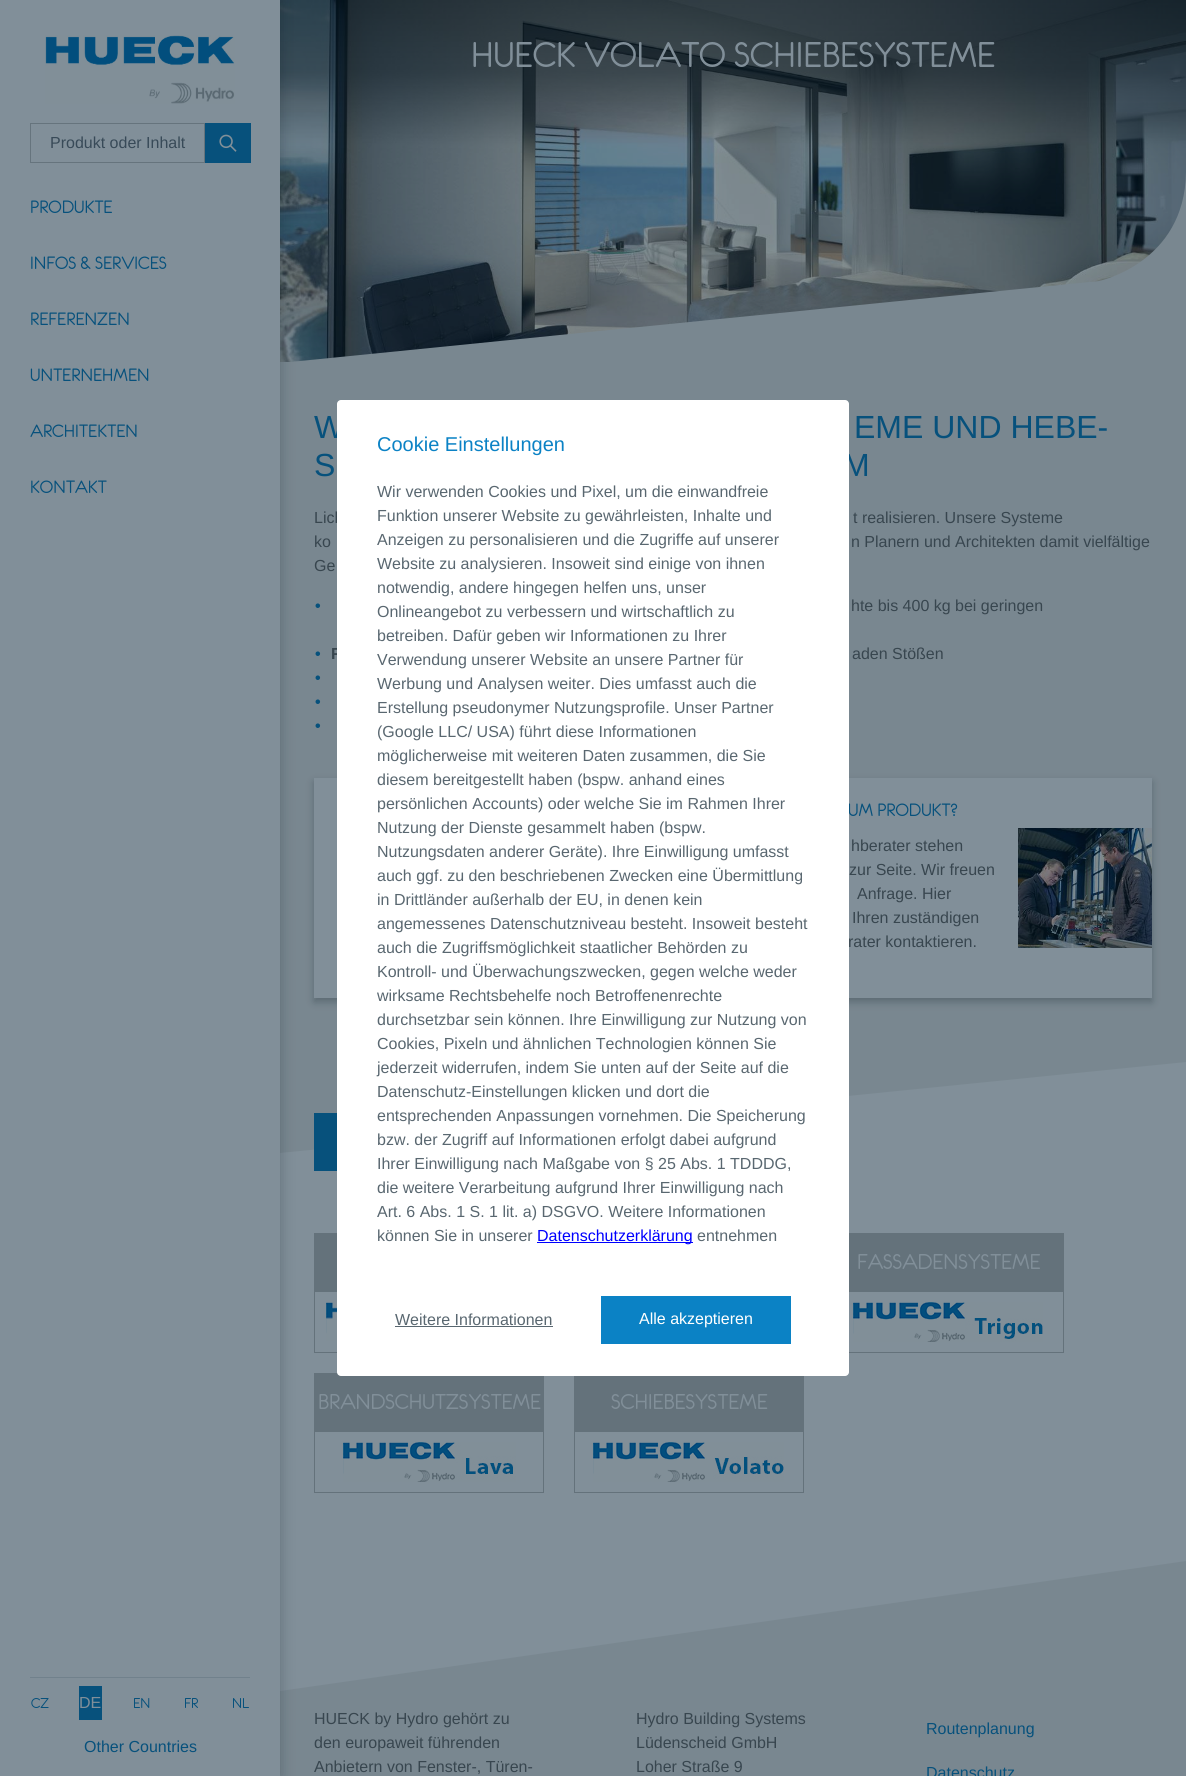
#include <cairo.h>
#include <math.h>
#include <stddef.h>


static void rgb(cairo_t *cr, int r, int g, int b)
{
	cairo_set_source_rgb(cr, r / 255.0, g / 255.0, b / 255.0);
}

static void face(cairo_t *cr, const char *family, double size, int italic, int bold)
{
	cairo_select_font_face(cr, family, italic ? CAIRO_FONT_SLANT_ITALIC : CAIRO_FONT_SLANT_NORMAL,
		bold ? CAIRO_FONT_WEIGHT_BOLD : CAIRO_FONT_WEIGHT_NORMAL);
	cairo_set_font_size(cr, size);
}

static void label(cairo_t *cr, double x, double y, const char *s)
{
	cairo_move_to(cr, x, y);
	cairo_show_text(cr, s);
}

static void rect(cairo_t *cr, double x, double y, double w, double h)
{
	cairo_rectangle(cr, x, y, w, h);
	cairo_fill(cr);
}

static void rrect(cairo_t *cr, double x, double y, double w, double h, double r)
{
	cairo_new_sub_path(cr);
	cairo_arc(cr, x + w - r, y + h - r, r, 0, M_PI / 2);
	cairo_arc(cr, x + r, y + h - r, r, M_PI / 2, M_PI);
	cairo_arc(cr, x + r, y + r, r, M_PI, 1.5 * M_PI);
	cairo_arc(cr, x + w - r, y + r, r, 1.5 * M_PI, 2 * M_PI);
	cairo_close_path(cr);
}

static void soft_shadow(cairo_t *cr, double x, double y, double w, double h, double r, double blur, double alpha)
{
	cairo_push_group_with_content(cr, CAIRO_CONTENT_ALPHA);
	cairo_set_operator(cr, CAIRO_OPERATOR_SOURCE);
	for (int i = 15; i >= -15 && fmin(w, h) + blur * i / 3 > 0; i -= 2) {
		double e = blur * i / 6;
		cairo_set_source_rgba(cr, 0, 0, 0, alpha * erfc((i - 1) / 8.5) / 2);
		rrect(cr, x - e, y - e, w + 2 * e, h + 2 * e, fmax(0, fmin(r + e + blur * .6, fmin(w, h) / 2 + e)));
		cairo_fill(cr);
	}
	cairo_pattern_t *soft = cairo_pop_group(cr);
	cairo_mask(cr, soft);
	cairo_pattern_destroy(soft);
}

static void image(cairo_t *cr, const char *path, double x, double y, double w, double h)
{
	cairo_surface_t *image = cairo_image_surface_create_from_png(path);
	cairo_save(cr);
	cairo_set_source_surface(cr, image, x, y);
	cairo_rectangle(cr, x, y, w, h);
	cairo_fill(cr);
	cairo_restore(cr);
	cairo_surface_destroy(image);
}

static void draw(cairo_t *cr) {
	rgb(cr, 129, 143, 153);
	cairo_paint(cr);
	image(cr, "image2.png", 280, 0, 906, 362);
	rgb(cr, 121, 135, 144);
	rect(cr, 280, 362, 906, 700);
	cairo_new_path(cr);
	cairo_move_to(cr, 280, 363);
	cairo_line_to(cr, 1099, 281);
	cairo_curve_to(cr, 1099, 281, 1185, 263, 1186, 172);
	cairo_line_to(cr, 1186, 363);
	cairo_close_path(cr);
	cairo_move_to(cr, 280, 342);
	cairo_line_to(cr, 280, 363);
	cairo_close_path(cr);
	cairo_move_to(cr, 280, 151);
	cairo_line_to(cr, 1186, 151);
	cairo_line_to(cr, 1186, 172);
	cairo_line_to(cr, 1186, 151);
	cairo_close_path(cr);
	cairo_move_to(cr, 280, 151);
	cairo_line_to(cr, 280, 342);
	cairo_close_path(cr);
	cairo_fill(cr);
	cairo_new_path(cr);
	cairo_move_to(cr, 280, 1153);
	cairo_line_to(cr, 280, 1062);
	cairo_line_to(cr, 1186, 1062);
	cairo_close_path(cr);
	cairo_fill(cr);
	cairo_new_path(cr);
	cairo_move_to(cr, 1186, 1561);
	cairo_line_to(cr, 1186, 1691);
	cairo_line_to(cr, 280, 1691);
	cairo_close_path(cr);
	cairo_fill(cr);
	rect(cr, 280, 1691, 906, 85);
	rgb(cr, 2, 16, 25);
	soft_shadow(cr, 0, 0, 280, 1776, 0, 7.5, 0.25);
	rgb(cr, 129, 143, 153);
	rect(cr, 0, 0, 280, 1776);
	image(cr, "image0.png", 45, 35, 190, 69);
	cairo_rectangle(cr, 30.5, 123.5, 174, 39);
	rgb(cr, 102, 116, 125);
	cairo_set_line_width(cr, 1);
	cairo_stroke(cr);
	face(cr, "Liberation Sans", 16, 0, 0);
	rgb(cr, 56, 74, 88);
	label(cr, 50, 148, "Produkt oder Inhalt");
	rgb(cr, 7, 81, 124);
	rect(cr, 205, 123, 46, 40);
	image(cr, "image1.png", 219, 134, 18, 18);
	face(cr, "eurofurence", 20, 0, 0);
	label(cr, 30, 213, "PRODUKTE");
	label(cr, 30, 269, "INFOS & SERVICES");
	label(cr, 30, 325, "REFERENZEN");
	label(cr, 30, 381, "UNTERNEHMEN");
	label(cr, 30, 437, "ARCHITEKTEN");
	label(cr, 30, 493, "KONTAKT");
	rgb(cr, 113, 129, 140);
	rect(cr, 30, 1677, 220, 1);
	face(cr, "eurofurence", 16, 0, 0);
	rgb(cr, 7, 81, 124);
	label(cr, 31, 1708, "CZ");
	rect(cr, 79, 1686, 23, 34);
	face(cr, "Liberation Sans", 16, 0, 0);
	rgb(cr, 129, 143, 153);
	label(cr, 79, 1708, "DE");
	face(cr, "eurofurence", 16, 0, 0);
	rgb(cr, 7, 81, 124);
	label(cr, 133, 1708, "EN");
	label(cr, 184, 1708, "FR");
	label(cr, 232, 1708, "NL");
	face(cr, "Liberation Sans", 16, 0, 0);
	label(cr, 84, 1752, "Other Countries");
	face(cr, "eurofurence", 40, 0, 0);
	rgb(cr, 129, 143, 153);
	label(cr, 471, 67, "HUECK VOLATO SCHIEBESYSTEME");
	face(cr, "Liberation Sans", 32, 0, 0);
	rgb(cr, 7, 81, 124);
	label(cr, 314, 438, "W");
	label(cr, 854, 438, "EME UND HEBE-");
	label(cr, 314, 476, "S");
	label(cr, 843, 476, "M");
	face(cr, "Liberation Sans", 16, 0, 0);
	rgb(cr, 56, 70, 79);
	label(cr, 314, 523, "Lich");
	label(cr, 853, 523, "t realisieren. Unsere Systeme");
	label(cr, 314, 547, "ko");
	label(cr, 851, 547, "n Planern und Architekten damit vielfältige");
	label(cr, 314, 571, "Ge");
	face(cr, "Liberation Sans", 16, 0, 1);
	rgb(cr, 7, 81, 124);
	label(cr, 315, 611, "•");
	face(cr, "Liberation Sans", 16, 0, 0);
	rgb(cr, 56, 70, 79);
	label(cr, 851, 611, "hte bis 400 kg bei geringen");
	face(cr, "Liberation Sans", 16, 0, 1);
	rgb(cr, 7, 81, 124);
	label(cr, 315, 659, "•");
	rgb(cr, 56, 70, 79);
	label(cr, 331, 659, "F");
	face(cr, "Liberation Sans", 16, 0, 0);
	label(cr, 852, 659, "aden Stößen");
	face(cr, "Liberation Sans", 16, 0, 1);
	rgb(cr, 7, 81, 124);
	label(cr, 315, 683, "•");
	label(cr, 315, 707, "•");
	label(cr, 315, 731, "•");
	rgb(cr, 2, 16, 25);
	soft_shadow(cr, 314, 782, 404, 220, 0, 4, 0.25);
	rgb(cr, 129, 143, 153);
	rect(cr, 314, 778, 23, 220);
	rgb(cr, 2, 16, 25);
	soft_shadow(cr, 748, 782, 404, 220, 0, 4, 0.25);
	rgb(cr, 129, 143, 153);
	rect(cr, 849, 778, 303, 220);
	face(cr, "eurofurence", 20, 0, 0);
	rgb(cr, 7, 81, 124);
	label(cr, 848, 816, "UM PRODUKT?");
	face(cr, "Liberation Sans", 16, 0, 0);
	rgb(cr, 56, 70, 79);
	label(cr, 851, 851, "hberater stehen");
	label(cr, 849, 875, "zur Seite. Wir freuen");
	label(cr, 857, 899, "Anfrage. Hier");
	label(cr, 852, 923, "Ihren zuständigen");
	label(cr, 848, 947, "rater kontaktieren.");
	image(cr, "image3.png", 1018, 828, 134, 120);
	rgb(cr, 7, 81, 124);
	rect(cr, 314, 1113, 23, 58);
	cairo_rectangle(cr, 314.5, 1233.5, 229, 119);
	rgb(cr, 100, 114, 123);
	cairo_stroke(cr);
	rect(cr, 315, 1234, 22, 58);
	image(cr, "image4.png", 326, 1302, 11, 39);
	cairo_rectangle(cr, 834.5, 1233.5, 229, 119);
	cairo_stroke(cr);
	rect(cr, 849, 1234, 214, 58);
	face(cr, "eurofurence", 24, 0, 0);
	rgb(cr, 129, 143, 153);
	label(cr, 857, 1269, "FASSADENSYSTEME");
	image(cr, "image5.png", 853, 1302, 190, 40);
	cairo_rectangle(cr, 314.5, 1373.5, 229, 119);
	rgb(cr, 100, 114, 123);
	cairo_stroke(cr);
	rect(cr, 315, 1374, 228, 58);
	rgb(cr, 129, 143, 153);
	label(cr, 318, 1409, "BRANDSCHUTZSYSTEME");
	image(cr, "image6.png", 343, 1442, 173, 40);
	cairo_rectangle(cr, 574.5, 1373.5, 229, 119);
	rgb(cr, 100, 114, 123);
	cairo_stroke(cr);
	rect(cr, 575, 1376, 228, 56);
	rgb(cr, 129, 143, 153);
	label(cr, 611, 1409, "SCHIEBESYSTEME");
	image(cr, "image7.png", 593, 1442, 191, 40);
	face(cr, "Liberation Sans", 16, 0, 0);
	rgb(cr, 56, 70, 79);
	label(cr, 314, 1724, "HUECK by Hydro gehört zu");
	label(cr, 314, 1748, "den europaweit führenden");
	label(cr, 314, 1772, "Anbietern von Fenster-, Türen-");
	label(cr, 636, 1724, "Hydro Building Systems");
	label(cr, 636, 1748, "Lüdenscheid GmbH");
	label(cr, 636, 1772, "Loher Straße 9");
	rgb(cr, 7, 81, 124);
	label(cr, 926, 1734, "Routenplanung");
	label(cr, 926, 1778, "Datenschutz");
	rgb(cr, 255, 255, 255);
	rrect(cr, 337, 400, 512, 976, 4);
	cairo_fill(cr);
	face(cr, "Liberation Sans", 20, 0, 0);
	rgb(cr, 11, 130, 197);
	label(cr, 377, 451, "Cookie Einstellungen");
	face(cr, "Liberation Sans", 16, 0, 0);
	rgb(cr, 89, 103, 112);
	label(cr, 377, 497, "Wir verwenden Cookies und Pixel, um die einwandfreie");
	label(cr, 377, 521, "Funktion unserer Website zu gewährleisten, Inhalte und");
	label(cr, 377, 545, "Anzeigen zu personalisieren und die Zugriffe auf unserer");
	label(cr, 377, 569, "Website zu analysieren. Insoweit sind einige von ihnen");
	label(cr, 377, 593, "notwendig, andere hingegen helfen uns, unser");
	label(cr, 377, 617, "Onlineangebot zu verbessern und wirtschaftlich zu");
	label(cr, 377, 641, "betreiben. Dafür geben wir Informationen zu Ihrer");
	label(cr, 377, 665, "Verwendung unserer Website an unsere Partner für");
	label(cr, 377, 689, "Werbung und Analysen weiter. Dies umfasst auch die");
	label(cr, 377, 713, "Erstellung pseudonymer Nutzungsprofile. Unser Partner");
	label(cr, 377, 737, "(Google LLC/ USA) führt diese Informationen");
	label(cr, 377, 761, "möglicherweise mit weiteren Daten zusammen, die Sie");
	label(cr, 377, 785, "diesem bereitgestellt haben (bspw. anhand eines");
	label(cr, 377, 809, "persönlichen Accounts) oder welche Sie im Rahmen Ihrer");
	label(cr, 377, 833, "Nutzung der Dienste gesammelt haben (bspw.");
	label(cr, 377, 857, "Nutzungsdaten anderer Geräte). Ihre Einwilligung umfasst");
	label(cr, 377, 881, "auch ggf. zu den beschriebenen Zwecken eine Übermittlung");
	label(cr, 377, 905, "in Drittländer außerhalb der EU, in denen kein");
	label(cr, 377, 929, "angemessenes Datenschutzniveau besteht. Insoweit besteht");
	label(cr, 377, 953, "auch die Zugriffsmöglichkeit staatlicher Behörden zu");
	label(cr, 377, 977, "Kontroll- und Überwachungszwecken, gegen welche weder");
	label(cr, 377, 1001, "wirksame Rechtsbehelfe noch Betroffenenrechte");
	label(cr, 377, 1025, "durchsetzbar sein können. Ihre Einwilligung zur Nutzung von");
	label(cr, 377, 1049, "Cookies, Pixeln und ähnlichen Technologien können Sie");
	label(cr, 377, 1073, "jederzeit widerrufen, indem Sie unten auf der Seite auf die");
	label(cr, 377, 1097, "Datenschutz-Einstellungen klicken und dort die");
	label(cr, 377, 1121, "entsprechenden Anpassungen vornehmen. Die Speicherung");
	label(cr, 377, 1145, "bzw. der Zugriff auf Informationen erfolgt dabei aufgrund");
	label(cr, 377, 1169, "Ihrer Einwilligung nach Maßgabe von § 25 Abs. 1 TDDDG,");
	label(cr, 377, 1193, "die weitere Verarbeitung aufgrund Ihrer Einwilligung nach");
	label(cr, 377, 1217, "Art. 6 Abs. 1 S. 1 lit. a) DSGVO. Weitere Informationen");
	label(cr, 377, 1241, "können Sie in unserer");
	rgb(cr, 0, 0, 255);
	rect(cr, 537, 1242, 156, 1);
	label(cr, 537, 1241, "Datenschutzerklärung");
	rgb(cr, 89, 103, 112);
	label(cr, 697, 1241, "entnehmen");
	label(cr, 395, 1325, "Weitere Informationen");
	rect(cr, 395, 1326, 158, 1);
	rgb(cr, 11, 130, 197);
	rect(cr, 601, 1296, 190, 48);
	rgb(cr, 255, 255, 255);
	label(cr, 639, 1324, "Alle akzeptieren");
}

int main(void) {
	cairo_surface_t *surface = cairo_image_surface_create(CAIRO_FORMAT_RGB24, 1186, 1776);
	cairo_t *cr = cairo_create(surface);
	cairo_font_options_t *options = cairo_font_options_create();
	cairo_font_options_set_hint_metrics(options, CAIRO_HINT_METRICS_OFF);
	cairo_font_options_set_hint_style(options, CAIRO_HINT_STYLE_NONE);
	cairo_set_font_options(cr, options);
	cairo_set_miter_limit(cr, 4);
	draw(cr);
	cairo_surface_write_to_png(surface, "render.png");
	cairo_font_options_destroy(options);
	cairo_destroy(cr);
	cairo_surface_destroy(surface);
	return 0;
}
